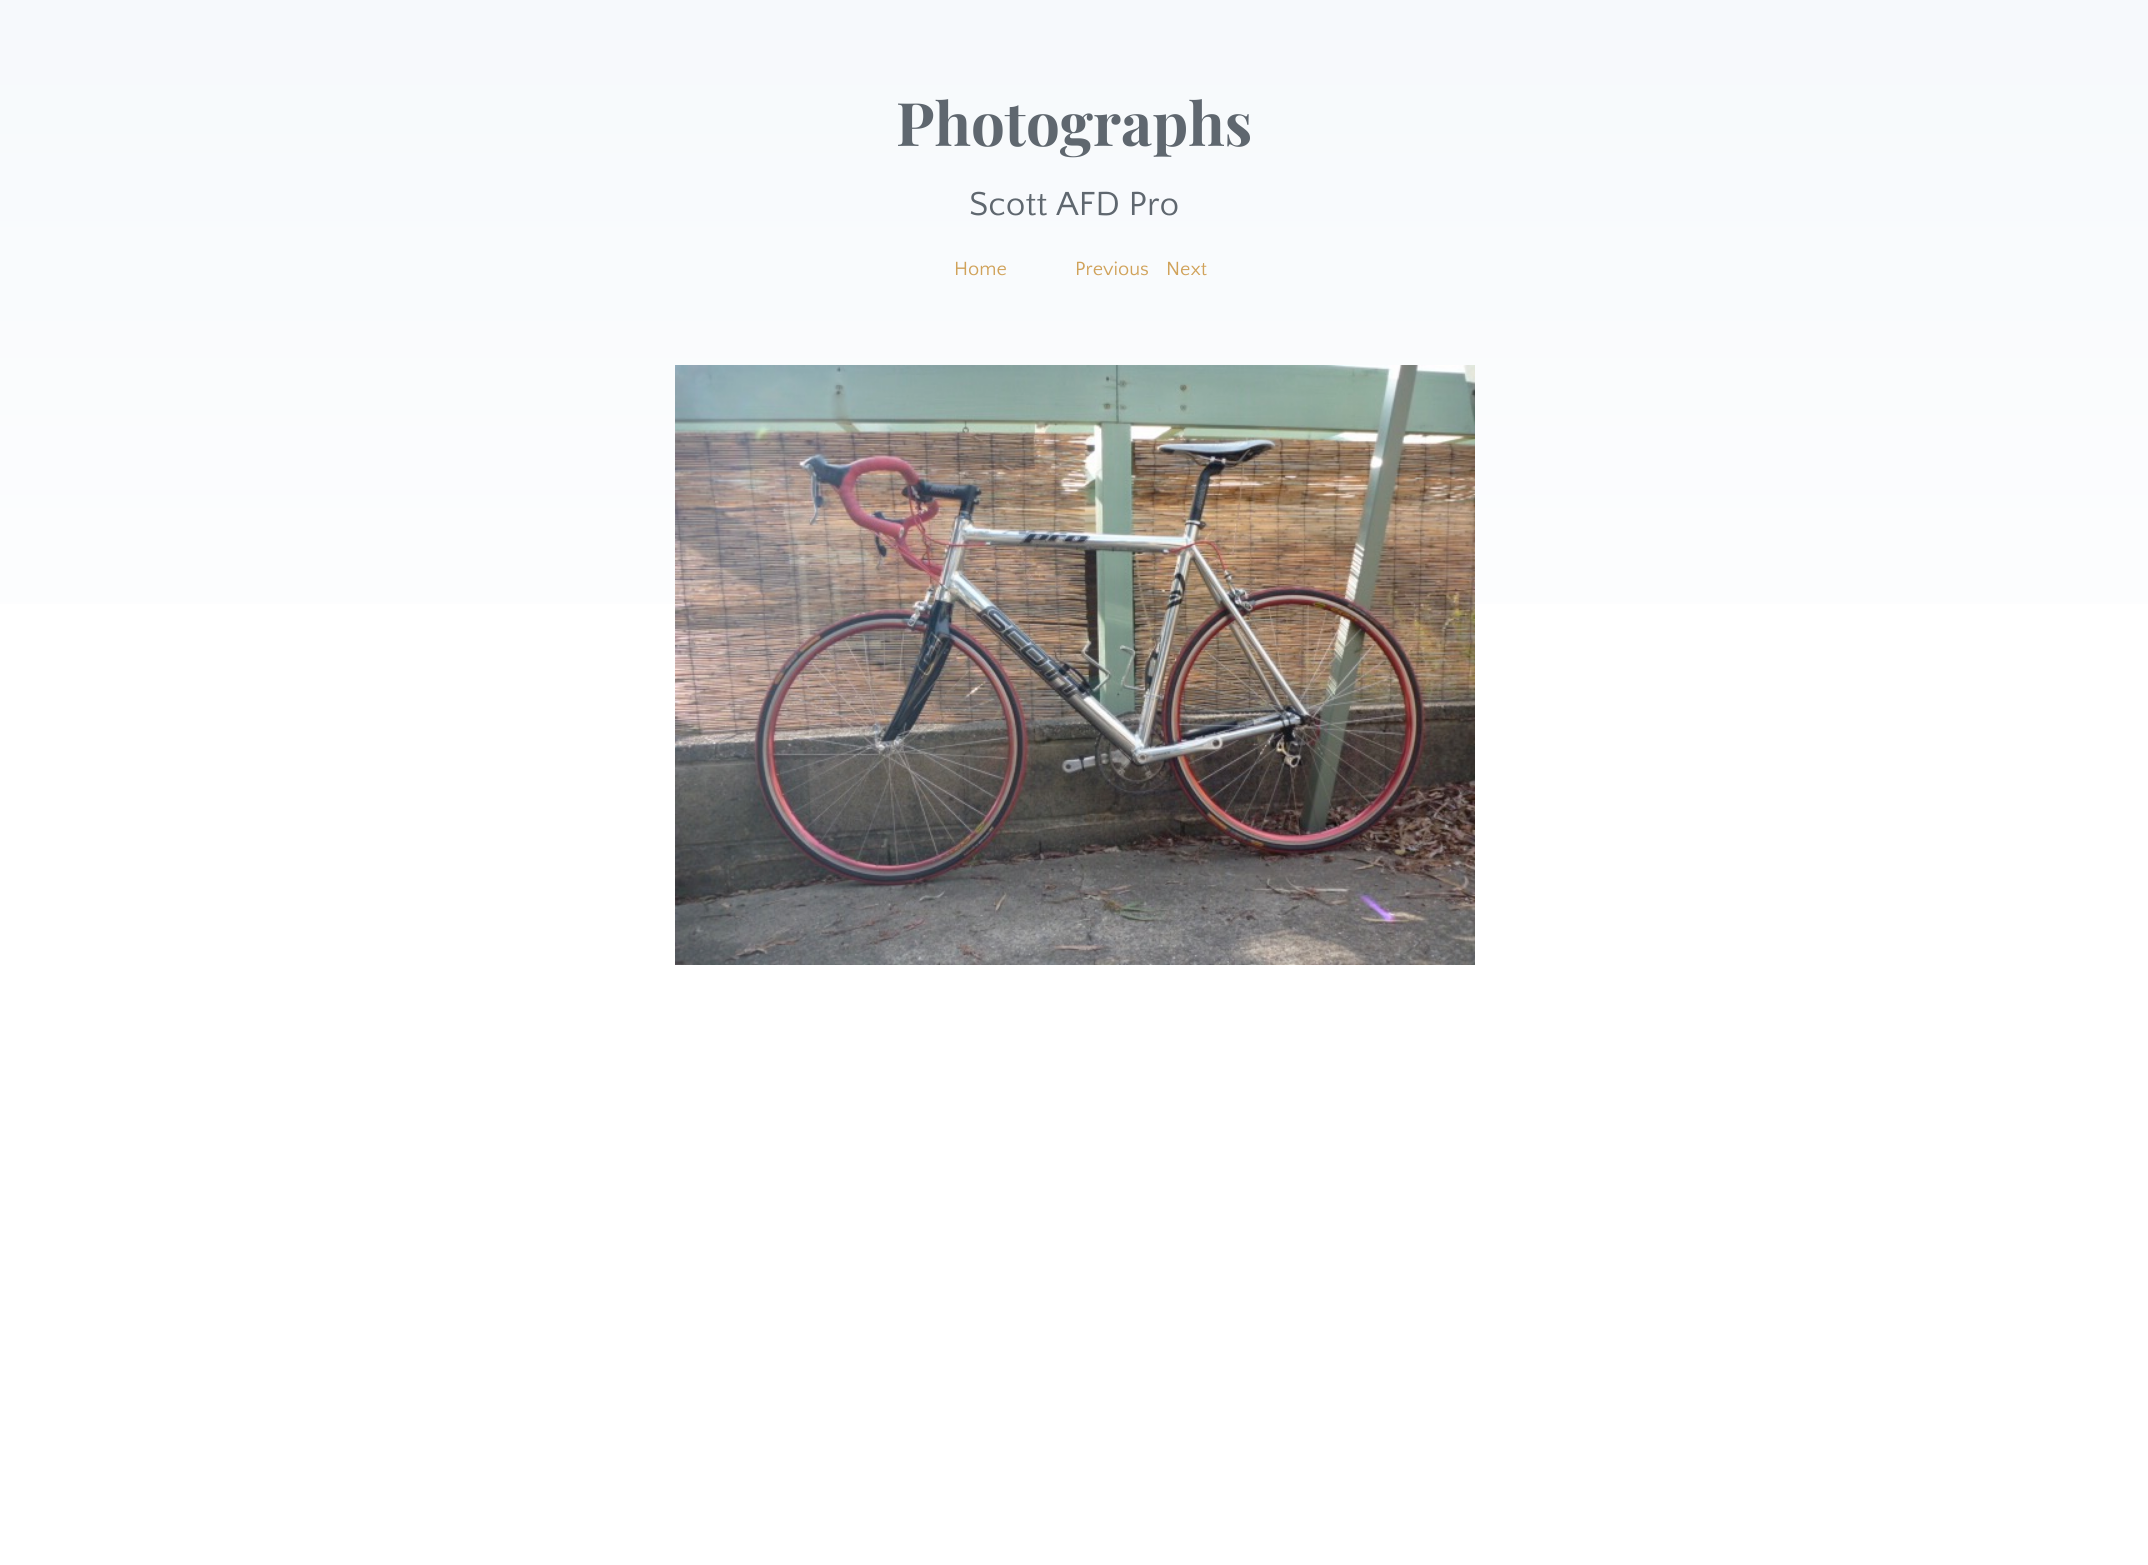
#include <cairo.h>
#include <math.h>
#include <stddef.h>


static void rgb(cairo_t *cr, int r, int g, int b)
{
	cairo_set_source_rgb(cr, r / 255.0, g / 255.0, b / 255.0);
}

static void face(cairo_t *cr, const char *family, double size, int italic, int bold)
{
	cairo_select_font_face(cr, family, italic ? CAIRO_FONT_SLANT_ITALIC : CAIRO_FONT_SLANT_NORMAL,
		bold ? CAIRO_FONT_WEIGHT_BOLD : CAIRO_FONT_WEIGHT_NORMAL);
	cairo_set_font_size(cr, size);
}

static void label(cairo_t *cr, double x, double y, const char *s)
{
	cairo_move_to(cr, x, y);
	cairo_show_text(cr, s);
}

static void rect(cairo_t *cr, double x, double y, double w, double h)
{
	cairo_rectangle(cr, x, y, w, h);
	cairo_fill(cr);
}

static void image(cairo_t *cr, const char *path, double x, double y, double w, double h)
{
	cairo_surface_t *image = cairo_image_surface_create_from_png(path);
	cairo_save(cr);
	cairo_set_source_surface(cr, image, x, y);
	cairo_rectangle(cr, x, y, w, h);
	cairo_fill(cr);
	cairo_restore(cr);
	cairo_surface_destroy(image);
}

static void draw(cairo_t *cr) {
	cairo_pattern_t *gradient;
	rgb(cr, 255, 255, 255);
	cairo_paint(cr);
	gradient = cairo_pattern_create_linear(1074, 0, 1074, 1045);
	cairo_pattern_add_color_stop_rgba(gradient, 0, 0.965, 0.976, 0.988, 1);
	cairo_pattern_add_color_stop_rgba(gradient, 0.8, 1, 1, 1, 1);
	cairo_set_source(cr, gradient);
	cairo_pattern_destroy(gradient);
	rect(cr, 0, 0, 2148, 604);
	face(cr, "Playfair Display", 60, 0, 1);
	rgb(cr, 95, 103, 111);
	label(cr, 896, 146, "Photographs");
	face(cr, "Quattrocento Sans", 35, 0, 0);
	label(cr, 969, 215, "Scott AFD Pro");
	face(cr, "Quattrocento Sans", 20, 0, 0);
	rgb(cr, 208, 162, 90);
	label(cr, 954, 275, "Home");
	label(cr, 1075, 275, "Previous");
	label(cr, 1166, 275, "Next");
	image(cr, "image0.png", 675, 365, 800, 600);
}

int main(void) {
	cairo_surface_t *surface = cairo_image_surface_create(CAIRO_FORMAT_RGB24, 2148, 1565);
	cairo_t *cr = cairo_create(surface);
	cairo_font_options_t *options = cairo_font_options_create();
	cairo_font_options_set_hint_metrics(options, CAIRO_HINT_METRICS_OFF);
	cairo_font_options_set_hint_style(options, CAIRO_HINT_STYLE_NONE);
	cairo_set_font_options(cr, options);
	cairo_set_miter_limit(cr, 4);
	draw(cr);
	cairo_surface_write_to_png(surface, "render.png");
	cairo_font_options_destroy(options);
	cairo_destroy(cr);
	cairo_surface_destroy(surface);
	return 0;
}
